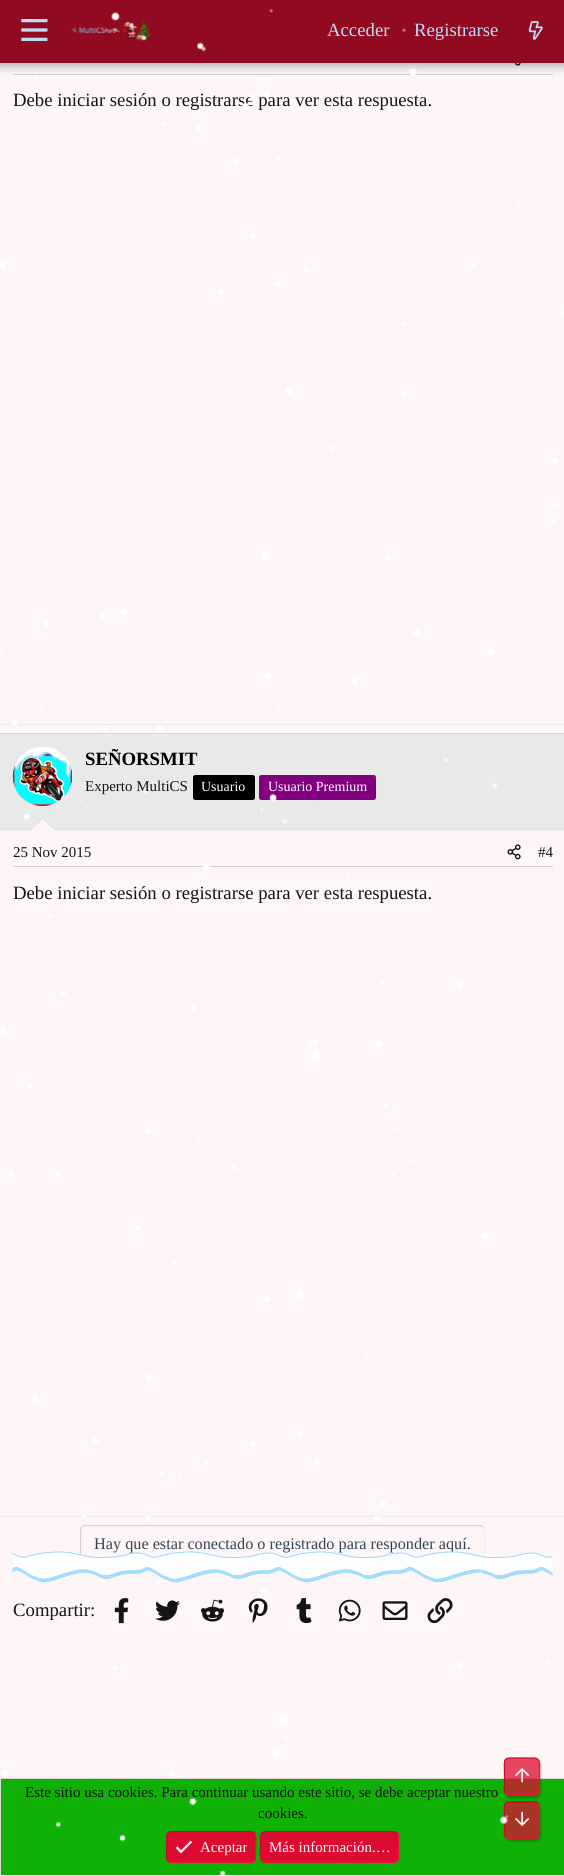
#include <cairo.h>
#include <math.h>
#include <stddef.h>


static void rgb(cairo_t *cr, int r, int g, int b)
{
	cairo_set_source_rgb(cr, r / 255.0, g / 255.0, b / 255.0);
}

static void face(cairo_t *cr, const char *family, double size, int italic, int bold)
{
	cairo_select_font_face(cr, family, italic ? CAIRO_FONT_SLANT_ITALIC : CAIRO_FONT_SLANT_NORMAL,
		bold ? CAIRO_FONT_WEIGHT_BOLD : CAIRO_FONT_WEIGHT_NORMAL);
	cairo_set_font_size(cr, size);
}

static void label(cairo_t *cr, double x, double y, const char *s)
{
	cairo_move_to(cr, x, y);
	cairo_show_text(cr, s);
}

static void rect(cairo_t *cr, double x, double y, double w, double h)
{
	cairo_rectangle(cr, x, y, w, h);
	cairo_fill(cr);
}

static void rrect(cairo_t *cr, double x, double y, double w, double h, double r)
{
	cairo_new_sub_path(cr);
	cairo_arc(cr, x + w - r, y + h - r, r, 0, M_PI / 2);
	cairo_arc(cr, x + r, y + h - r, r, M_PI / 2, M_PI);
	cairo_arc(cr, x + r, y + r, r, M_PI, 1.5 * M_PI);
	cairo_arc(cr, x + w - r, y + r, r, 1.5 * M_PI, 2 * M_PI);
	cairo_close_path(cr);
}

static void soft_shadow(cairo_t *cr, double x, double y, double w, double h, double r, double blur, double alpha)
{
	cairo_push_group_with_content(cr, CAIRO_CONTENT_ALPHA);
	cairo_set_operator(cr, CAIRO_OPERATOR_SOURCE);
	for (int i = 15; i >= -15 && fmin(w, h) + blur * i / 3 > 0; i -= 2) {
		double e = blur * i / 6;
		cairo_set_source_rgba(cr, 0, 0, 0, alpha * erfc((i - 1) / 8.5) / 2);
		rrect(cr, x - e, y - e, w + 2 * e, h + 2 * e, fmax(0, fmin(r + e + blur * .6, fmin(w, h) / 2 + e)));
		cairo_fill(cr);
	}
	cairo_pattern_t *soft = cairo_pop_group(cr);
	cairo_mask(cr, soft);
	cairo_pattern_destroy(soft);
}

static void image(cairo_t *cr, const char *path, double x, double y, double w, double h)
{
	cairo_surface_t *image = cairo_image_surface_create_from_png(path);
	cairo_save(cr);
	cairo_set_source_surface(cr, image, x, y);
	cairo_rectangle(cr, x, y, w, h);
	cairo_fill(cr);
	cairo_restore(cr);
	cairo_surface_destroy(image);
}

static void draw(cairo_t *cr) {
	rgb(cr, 254, 246, 246);
	cairo_paint(cr);
	rgb(cr, 213, 204, 204);
	rect(cr, 13, 74, 540, 1);
	image(cr, "image4.png", 515, 63, 6, 3);
	rgb(cr, 0, 0, 0);
	soft_shadow(cr, -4, -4, 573, 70, 0, 5, 0.3);
	rgb(cr, 145, 10, 34);
	rect(cr, 0, 0, 564, 63);
	image(cr, "image1.png", 21, 19, 27, 22);
	image(cr, "image2.png", 71, 21, 80, 20);
	face(cr, "Liberation Serif", 18.75, 0, 0);
	rgb(cr, 188, 222, 245);
	label(cr, 327, 36, "Acceder");
	label(cr, 414, 36, "Registrarse");
	image(cr, "image3.png", 528, 21, 15, 19);
	rgb(cr, 239, 235, 235);
	rect(cr, 0, 724, 564, 1);
	rgb(cr, 20, 20, 20);
	label(cr, 13, 106, "Debe iniciar sesión o registrarse para ver esta respuesta.");
	rgb(cr, 220, 213, 213);
	rect(cr, 0, 733, 564, 1);
	rgb(cr, 239, 235, 235);
	rect(cr, 0, 1516, 564, 1);
	rgb(cr, 233, 233, 233);
	rect(cr, 0, 734, 564, 95);
	rgb(cr, 227, 221, 221);
	rect(cr, 0, 829, 564, 1);
	rgb(cr, 254, 246, 246);
	cairo_new_path(cr);
	cairo_arc(cr, 43, 776, 30, 0, 2 * M_PI);
	cairo_fill(cr);
	image(cr, "image5.png", 12, 746, 61, 60);
	image(cr, "image6.png", 14, 746, 57, 32);
	face(cr, "Liberation Serif", 18.75, 0, 1);
	rgb(cr, 0, 0, 0);
	label(cr, 85, 765, "SEÑORSMIT");
	face(cr, "Liberation Serif", 15, 0, 0);
	rgb(cr, 20, 20, 20);
	label(cr, 85, 791, "Experto MultiCS");
	rgb(cr, 0, 0, 0);
	rrect(cr, 193.5, 775.5, 61, 24, 2);
	cairo_fill_preserve(cr);
	cairo_set_line_width(cr, 1);
	cairo_stroke(cr);
	face(cr, "Liberation Serif", 14, 0, 0);
	rgb(cr, 255, 255, 255);
	label(cr, 201, 791, "Usuario");
	rgb(cr, 128, 0, 128);
	rrect(cr, 259.5, 775.5, 116, 24, 2);
	cairo_fill_preserve(cr);
	cairo_stroke(cr);
	rgb(cr, 255, 255, 255);
	label(cr, 268, 791, "Usuario Premium");
	rgb(cr, 227, 221, 221);
	cairo_new_path(cr);
	cairo_move_to(cr, 55, 830);
	cairo_line_to(cr, 30, 830);
	cairo_line_to(cr, 42.5, 817.5);
	cairo_close_path(cr);
	cairo_fill(cr);
	rgb(cr, 254, 246, 246);
	cairo_new_path(cr);
	cairo_move_to(cr, 54, 830);
	cairo_line_to(cr, 31, 830);
	cairo_line_to(cr, 42.5, 819);
	cairo_close_path(cr);
	cairo_fill(cr);
	rgb(cr, 213, 204, 204);
	rect(cr, 13, 866, 540, 1);
	face(cr, "Liberation Serif", 15, 0, 0);
	rgb(cr, 20, 20, 20);
	label(cr, 13, 857, "25 Nov 2015");
	image(cr, "image7.png", 507, 844, 14, 16);
	label(cr, 538, 857, "#4");
	face(cr, "Liberation Serif", 18.75, 0, 0);
	label(cr, 13, 899, "Debe iniciar sesión o registrarse para ver esta respuesta.");
	cairo_new_path(cr);
	cairo_move_to(cr, 483, 1527);
	cairo_curve_to(cr, 485, 1529, 484.5, 1532.5, 484.5, 1535);
	cairo_line_to(cr, 484.5, 1554);
	cairo_curve_to(cr, 484.5, 1557, 485, 1562, 481, 1563);
	cairo_line_to(cr, 85, 1563);
	cairo_line_to(cr, 82, 1562);
	rgb(cr, 239, 235, 235);
	cairo_set_line_width(cr, 1.2);
	cairo_stroke(cr);
	cairo_new_path(cr);
	cairo_move_to(cr, 82, 1562);
	cairo_curve_to(cr, 80, 1560, 80.5, 1556.5, 80.5, 1554);
	cairo_line_to(cr, 80.5, 1535);
	cairo_curve_to(cr, 80.5, 1531.5, 80, 1526.5, 84, 1525.5);
	cairo_line_to(cr, 480, 1525.5);
	cairo_line_to(cr, 483, 1527);
	rgb(cr, 215, 207, 207);
	cairo_stroke(cr);
	face(cr, "Liberation Serif", 16.25, 0, 0);
	rgb(cr, 47, 68, 86);
	label(cr, 94, 1549, "Hay que estar conectado o registrado para responder aquí.");
	image(cr, "image8.png", 12, 1551, 541, 32);
	face(cr, "Liberation Serif", 18.75, 0, 0);
	rgb(cr, 20, 20, 20);
	label(cr, 13, 1616, "Compartir:");
	image(cr, "image9.png", 114, 1598, 15, 26);
	image(cr, "image10.png", 155, 1600, 25, 21);
	image(cr, "image11.png", 200, 1599, 25, 23);
	image(cr, "image12.png", 248, 1598, 20, 25);
	image(cr, "image13.png", 296, 1598, 16, 26);
	image(cr, "image14.png", 338, 1599, 23, 23);
	image(cr, "image15.png", 382, 1601, 26, 19);
	image(cr, "image16.png", 427, 1598, 26, 26);
	rgb(cr, 15, 177, 6);
	rect(cr, 1, 1779, 563, 96);
	rgb(cr, 220, 213, 213);
	rect(cr, 0, 1778, 564, 1);
	rgb(cr, 239, 235, 235);
	rect(cr, 0, 1875, 564, 1);
	rgb(cr, 227, 221, 221);
	rect(cr, 0, 1778, 1, 98);
	face(cr, "Liberation Serif", 15, 0, 0);
	rgb(cr, 20, 20, 20);
	label(cr, 25, 1797, "Este sitio usa cookies. Para continuar usando este sitio, se debe aceptar nuestro");
	label(cr, 258, 1818, "cookies.");
	rgb(cr, 221, 11, 49);
	rrect(cr, 166, 1831, 90, 32, 5);
	cairo_fill(cr);
	cairo_new_path(cr);
	cairo_move_to(cr, 254.5, 1833);
	cairo_curve_to(cr, 257, 1836, 255.5, 1843.5, 255.5, 1847);
	cairo_curve_to(cr, 255.5, 1864.5, 257, 1862, 238, 1862);
	cairo_line_to(cr, 184.5, 1862);
	cairo_curve_to(cr, 183.5, 1862, 171.5, 1864, 168, 1860.5);
	rgb(cr, 243, 14, 56);
	cairo_stroke(cr);
	cairo_new_path(cr);
	cairo_move_to(cr, 168, 1860.5);
	cairo_curve_to(cr, 165.5, 1858, 167, 1850, 167, 1847);
	cairo_curve_to(cr, 167, 1829, 165.5, 1832, 184.5, 1832);
	cairo_line_to(cr, 238, 1832);
	cairo_curve_to(cr, 239, 1832, 251, 1830, 254.5, 1833);
	rgb(cr, 197, 10, 44);
	cairo_stroke(cr);
	image(cr, "image17.png", 176, 1840, 16, 14);
	rgb(cr, 254, 246, 246);
	label(cr, 200, 1852, "Aceptar");
	rgb(cr, 221, 11, 49);
	rrect(cr, 260, 1831, 139, 32, 5);
	cairo_fill(cr);
	cairo_new_path(cr);
	cairo_move_to(cr, 397, 1833);
	cairo_curve_to(cr, 399.5, 1836, 398, 1843.5, 398, 1847);
	cairo_line_to(cr, 398, 1854);
	cairo_curve_to(cr, 398, 1857, 398.5, 1862, 394, 1862);
	cairo_line_to(cr, 263.5, 1861.5);
	cairo_line_to(cr, 262, 1860.5);
	rgb(cr, 243, 14, 56);
	cairo_stroke(cr);
	cairo_new_path(cr);
	cairo_move_to(cr, 262, 1860.5);
	cairo_curve_to(cr, 259.5, 1858, 260.5, 1850, 260.5, 1847);
	cairo_line_to(cr, 260.5, 1840);
	cairo_curve_to(cr, 260.5, 1836.5, 260.5, 1832, 265, 1832);
	cairo_line_to(cr, 395.5, 1832);
	cairo_line_to(cr, 397, 1833);
	rgb(cr, 197, 10, 44);
	cairo_stroke(cr);
	rgb(cr, 254, 246, 246);
	label(cr, 269, 1852, "Más información.…");
	cairo_save(cr);
	cairo_set_fill_rule(cr, CAIRO_FILL_RULE_EVEN_ODD);
	cairo_new_path(cr);
	cairo_move_to(cr, 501, 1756);
	cairo_line_to(cr, 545, 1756);
	cairo_line_to(cr, 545, 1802);
	cairo_line_to(cr, 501, 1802);
	cairo_close_path(cr);
	cairo_move_to(cr, 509, 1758);
	cairo_line_to(cr, 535, 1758);
	cairo_curve_to(cr, 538, 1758, 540, 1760, 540, 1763);
	cairo_line_to(cr, 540, 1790);
	cairo_curve_to(cr, 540, 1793, 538, 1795, 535, 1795);
	cairo_line_to(cr, 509, 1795);
	cairo_curve_to(cr, 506, 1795, 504, 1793, 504, 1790);
	cairo_line_to(cr, 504, 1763);
	cairo_curve_to(cr, 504, 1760, 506, 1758, 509, 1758);
	cairo_close_path(cr);
	cairo_clip(cr);
	rgb(cr, 0, 0, 0);
	soft_shadow(cr, 505, 1760, 36, 38, 5, 1, 0.25);
	cairo_restore(cr);
	cairo_set_source_rgba(cr, 0.867, 0.043, 0.192, 0.75);
	rrect(cr, 504, 1758, 36, 37, 5);
	cairo_fill(cr);
	cairo_new_path(cr);
	cairo_move_to(cr, 538, 1759.5);
	cairo_curve_to(cr, 540, 1761.5, 539.5, 1764.5, 539.5, 1767);
	cairo_line_to(cr, 539.5, 1776);
	cairo_curve_to(cr, 539.5, 1797, 542, 1794.5, 522, 1794.5);
	cairo_line_to(cr, 513, 1794.5);
	cairo_curve_to(cr, 511, 1794.5, 507.5, 1795, 505.5, 1793);
	rgb(cr, 243, 14, 56);
	cairo_stroke(cr);
	cairo_new_path(cr);
	cairo_move_to(cr, 505.5, 1793);
	cairo_curve_to(cr, 503.5, 1791, 504.5, 1788, 504.5, 1785.5);
	cairo_line_to(cr, 504.5, 1776);
	cairo_curve_to(cr, 504.5, 1755.5, 501.5, 1758, 522, 1758);
	cairo_line_to(cr, 530.5, 1758);
	cairo_curve_to(cr, 533, 1758, 536, 1757.5, 538, 1759.5);
	rgb(cr, 197, 10, 44);
	cairo_stroke(cr);
	image(cr, "image18.png", 515, 1768, 15, 15);
	cairo_save(cr);
	cairo_set_fill_rule(cr, CAIRO_FILL_RULE_EVEN_ODD);
	cairo_new_path(cr);
	cairo_move_to(cr, 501, 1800);
	cairo_line_to(cr, 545, 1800);
	cairo_line_to(cr, 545, 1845);
	cairo_line_to(cr, 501, 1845);
	cairo_close_path(cr);
	cairo_move_to(cr, 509, 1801);
	cairo_line_to(cr, 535, 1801);
	cairo_curve_to(cr, 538, 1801, 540, 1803, 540, 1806);
	cairo_line_to(cr, 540, 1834);
	cairo_curve_to(cr, 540, 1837, 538, 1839, 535, 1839);
	cairo_line_to(cr, 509, 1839);
	cairo_curve_to(cr, 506, 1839, 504, 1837, 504, 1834);
	cairo_line_to(cr, 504, 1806);
	cairo_curve_to(cr, 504, 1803, 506, 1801, 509, 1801);
	cairo_close_path(cr);
	cairo_clip(cr);
	rgb(cr, 0, 0, 0);
	soft_shadow(cr, 505, 1804, 36, 37, 5, 1, 0.25);
	cairo_restore(cr);
	cairo_set_source_rgba(cr, 0.867, 0.043, 0.192, 0.75);
	rrect(cr, 504, 1801, 36, 38, 5);
	cairo_fill(cr);
	cairo_new_path(cr);
	cairo_move_to(cr, 538, 1803);
	cairo_curve_to(cr, 540, 1805, 539.5, 1808.5, 539.5, 1811);
	cairo_line_to(cr, 539.5, 1820);
	cairo_curve_to(cr, 539.5, 1840.5, 542, 1838, 522, 1838);
	cairo_line_to(cr, 513, 1838);
	cairo_curve_to(cr, 511, 1838, 507.5, 1839, 505.5, 1837);
	rgb(cr, 243, 14, 56);
	cairo_stroke(cr);
	cairo_new_path(cr);
	cairo_move_to(cr, 505.5, 1837);
	cairo_curve_to(cr, 503.5, 1835, 504.5, 1831.5, 504.5, 1829);
	cairo_line_to(cr, 504.5, 1820);
	cairo_curve_to(cr, 504.5, 1799.5, 501.5, 1802, 522, 1802);
	cairo_line_to(cr, 530.5, 1802);
	cairo_curve_to(cr, 533, 1802, 536, 1801, 538, 1803);
	rgb(cr, 197, 10, 44);
	cairo_stroke(cr);
	image(cr, "image19.png", 515, 1811, 15, 15);
	image(cr, "image0.png", 0, 8, 564, 1868);
}

int main(void) {
	cairo_surface_t *surface = cairo_image_surface_create(CAIRO_FORMAT_RGB24, 564, 1876);
	cairo_t *cr = cairo_create(surface);
	cairo_font_options_t *options = cairo_font_options_create();
	cairo_font_options_set_hint_metrics(options, CAIRO_HINT_METRICS_OFF);
	cairo_font_options_set_hint_style(options, CAIRO_HINT_STYLE_NONE);
	cairo_set_font_options(cr, options);
	cairo_set_miter_limit(cr, 4);
	draw(cr);
	cairo_surface_write_to_png(surface, "render.png");
	cairo_font_options_destroy(options);
	cairo_destroy(cr);
	cairo_surface_destroy(surface);
	return 0;
}
